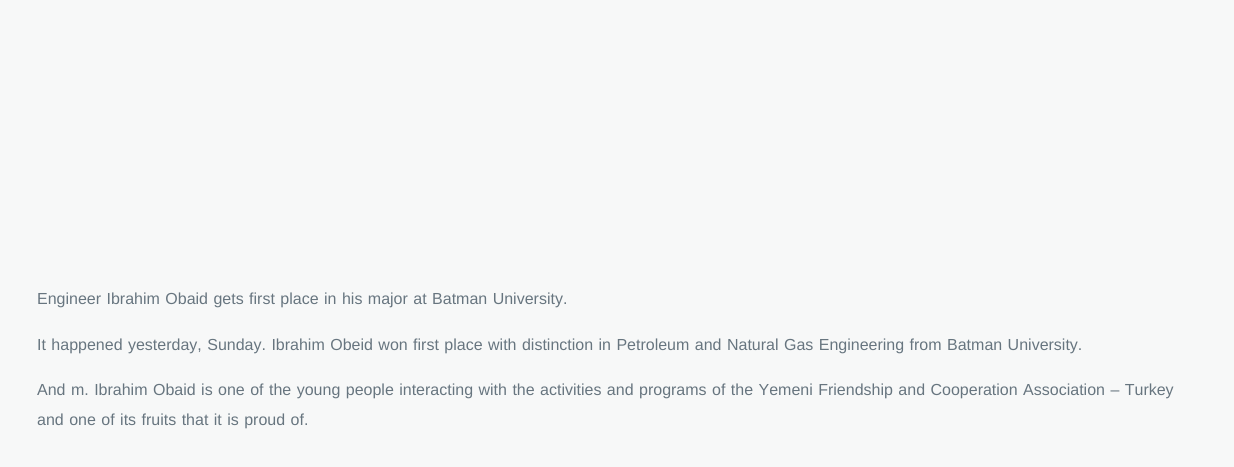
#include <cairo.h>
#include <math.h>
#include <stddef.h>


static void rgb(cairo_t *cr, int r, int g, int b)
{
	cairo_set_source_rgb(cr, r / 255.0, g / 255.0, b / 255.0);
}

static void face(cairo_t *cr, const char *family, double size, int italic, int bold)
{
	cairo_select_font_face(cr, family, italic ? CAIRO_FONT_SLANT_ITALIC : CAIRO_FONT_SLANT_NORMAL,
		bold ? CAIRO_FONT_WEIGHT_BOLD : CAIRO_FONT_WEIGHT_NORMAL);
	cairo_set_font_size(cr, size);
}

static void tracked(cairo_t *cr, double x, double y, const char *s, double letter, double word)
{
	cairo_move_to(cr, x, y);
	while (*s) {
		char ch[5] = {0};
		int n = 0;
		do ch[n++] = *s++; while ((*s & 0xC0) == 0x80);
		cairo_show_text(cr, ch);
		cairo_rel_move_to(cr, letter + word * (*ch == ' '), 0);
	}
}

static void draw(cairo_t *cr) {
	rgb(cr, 247, 248, 248);
	cairo_paint(cr);
	face(cr, "Liberation Sans", 16, 0, 0);
	rgb(cr, 103, 117, 127);
	tracked(cr, 37, 304, "Engineer Ibrahim Obaid gets first place in his major at Batman University.", 0, 1);
	tracked(cr, 37, 350, "It happened yesterday, Sunday. Ibrahim Obeid won first place with distinction in Petroleum and Natural Gas Engineering from Batman University.", 0, 1);
	tracked(cr, 37, 395, "And m. Ibrahim Obaid is one of the young people interacting with the activities and programs of the Yemeni Friendship and Cooperation Association – Turkey", 0, 1);
	tracked(cr, 37, 425, "and one of its fruits that it is proud of.", 0, 1);
}

int main(void) {
	cairo_surface_t *surface = cairo_image_surface_create(CAIRO_FORMAT_RGB24, 1234, 467);
	cairo_t *cr = cairo_create(surface);
	cairo_font_options_t *options = cairo_font_options_create();
	cairo_font_options_set_hint_metrics(options, CAIRO_HINT_METRICS_OFF);
	cairo_font_options_set_hint_style(options, CAIRO_HINT_STYLE_NONE);
	cairo_set_font_options(cr, options);
	cairo_set_miter_limit(cr, 4);
	draw(cr);
	cairo_surface_write_to_png(surface, "render.png");
	cairo_font_options_destroy(options);
	cairo_destroy(cr);
	cairo_surface_destroy(surface);
	return 0;
}
